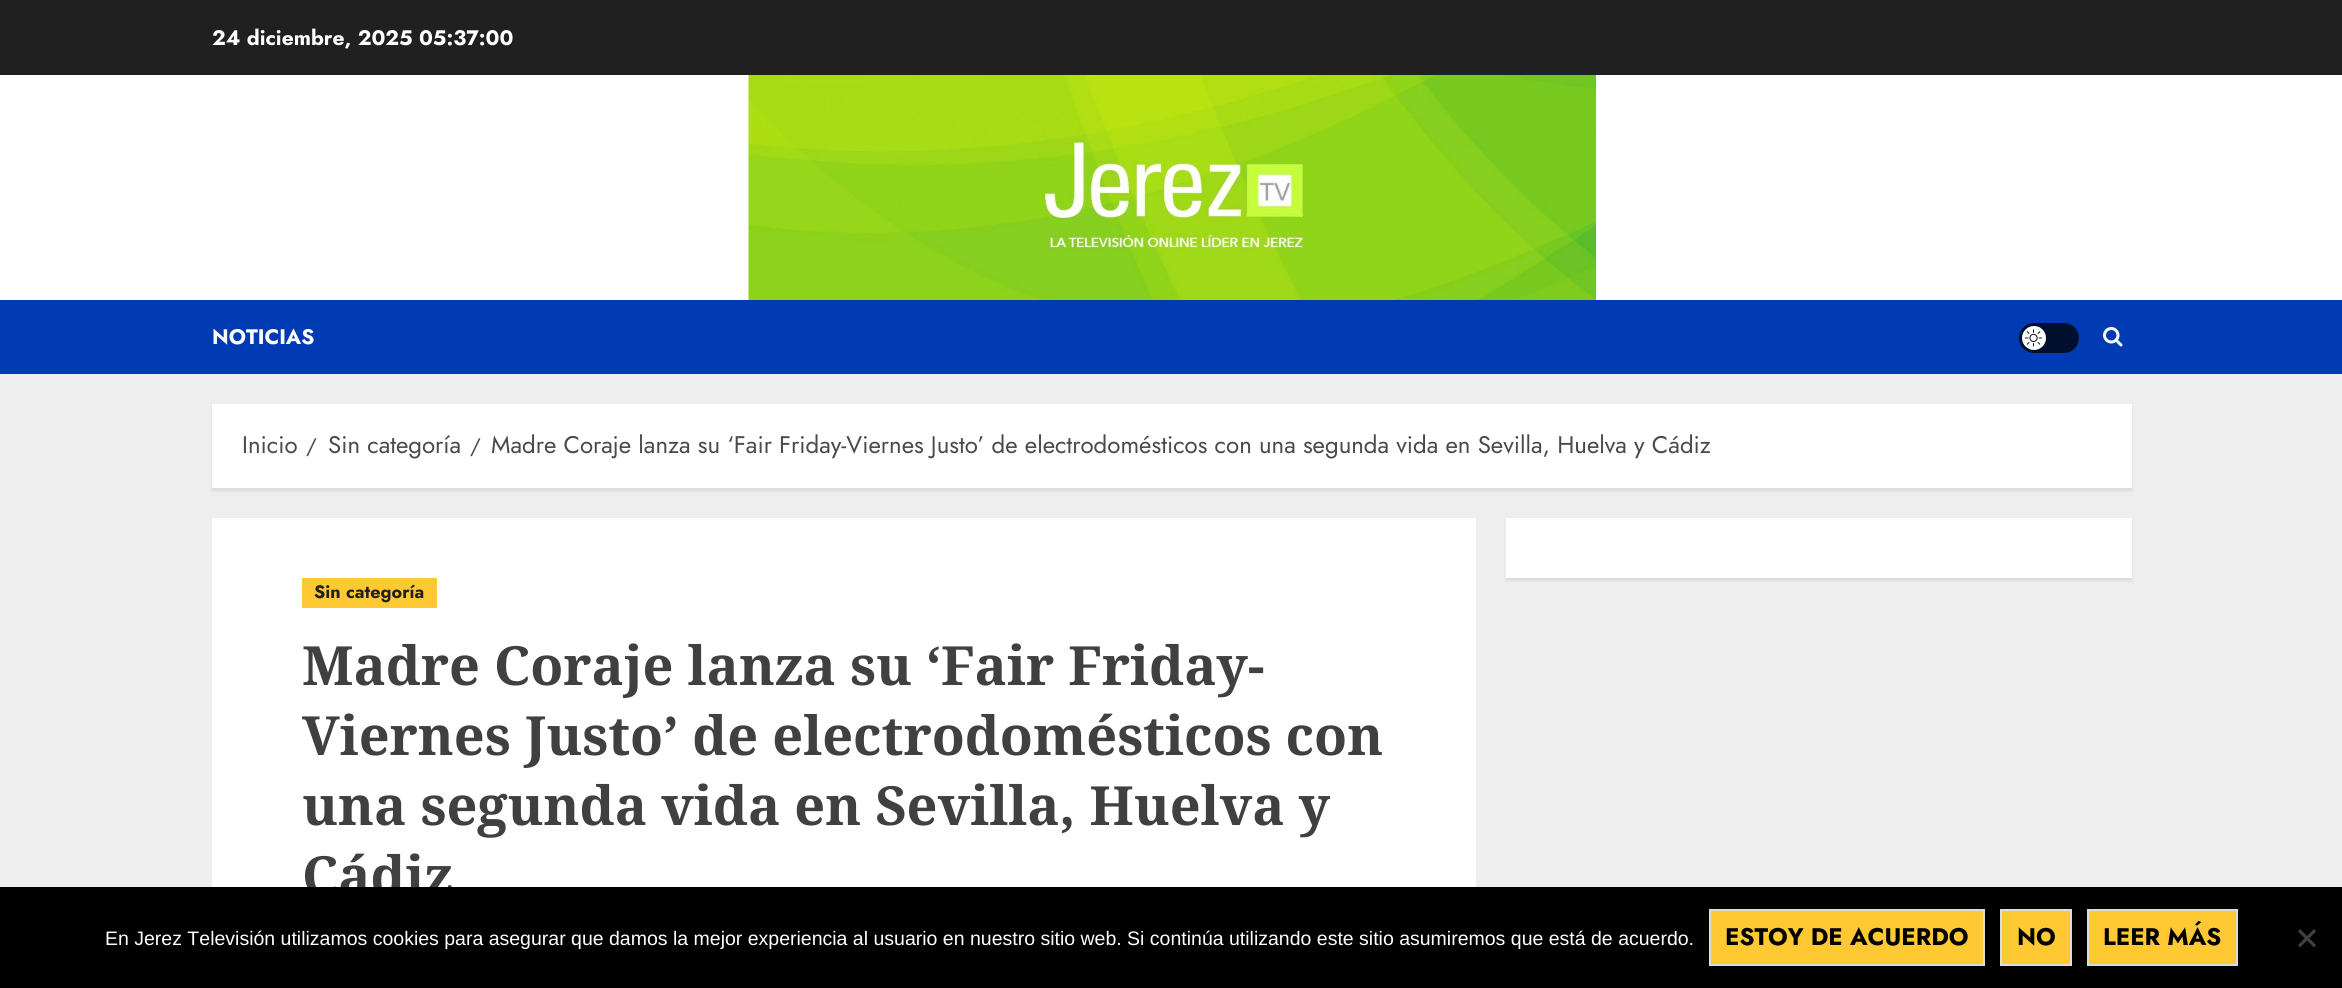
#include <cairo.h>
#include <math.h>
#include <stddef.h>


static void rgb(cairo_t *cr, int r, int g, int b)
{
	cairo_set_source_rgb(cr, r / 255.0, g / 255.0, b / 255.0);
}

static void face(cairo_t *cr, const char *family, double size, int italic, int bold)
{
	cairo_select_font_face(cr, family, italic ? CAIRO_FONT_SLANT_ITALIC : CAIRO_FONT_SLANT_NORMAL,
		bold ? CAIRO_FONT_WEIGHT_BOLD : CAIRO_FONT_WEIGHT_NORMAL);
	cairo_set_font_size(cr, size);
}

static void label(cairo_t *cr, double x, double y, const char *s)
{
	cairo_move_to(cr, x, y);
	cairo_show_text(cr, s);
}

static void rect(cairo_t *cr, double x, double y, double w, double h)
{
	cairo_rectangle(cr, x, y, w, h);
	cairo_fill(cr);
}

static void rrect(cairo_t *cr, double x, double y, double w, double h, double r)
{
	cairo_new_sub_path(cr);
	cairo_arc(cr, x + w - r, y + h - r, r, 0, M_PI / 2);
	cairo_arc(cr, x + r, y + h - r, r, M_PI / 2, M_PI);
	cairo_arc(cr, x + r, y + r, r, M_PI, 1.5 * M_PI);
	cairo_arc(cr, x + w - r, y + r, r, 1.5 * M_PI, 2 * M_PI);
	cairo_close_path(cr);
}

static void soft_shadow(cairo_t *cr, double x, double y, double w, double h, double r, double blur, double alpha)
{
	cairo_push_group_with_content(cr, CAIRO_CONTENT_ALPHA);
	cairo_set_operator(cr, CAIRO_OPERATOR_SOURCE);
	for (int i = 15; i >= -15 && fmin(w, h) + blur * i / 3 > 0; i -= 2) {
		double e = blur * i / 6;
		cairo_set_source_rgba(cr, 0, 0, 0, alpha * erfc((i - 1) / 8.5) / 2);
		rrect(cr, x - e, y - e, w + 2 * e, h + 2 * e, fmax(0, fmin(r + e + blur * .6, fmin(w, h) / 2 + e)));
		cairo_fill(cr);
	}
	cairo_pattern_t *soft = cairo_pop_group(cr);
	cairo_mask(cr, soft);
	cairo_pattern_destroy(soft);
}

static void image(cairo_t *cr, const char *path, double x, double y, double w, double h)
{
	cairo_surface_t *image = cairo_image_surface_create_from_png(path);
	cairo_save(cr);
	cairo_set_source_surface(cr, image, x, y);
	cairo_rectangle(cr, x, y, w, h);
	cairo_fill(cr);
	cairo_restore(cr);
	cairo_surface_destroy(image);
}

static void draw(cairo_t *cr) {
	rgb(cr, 238, 238, 238);
	cairo_paint(cr);
	rgb(cr, 32, 32, 32);
	rect(cr, 0, 0, 2342, 75);
	face(cr, "Jost", 21, 0, 1);
	rgb(cr, 255, 255, 255);
	label(cr, 212, 45, "24 diciembre, 2025 05:37:00");
	rect(cr, 0, 75, 2342, 225);
	image(cr, "image0.png", 748, 75, 848, 225);
	rgb(cr, 0, 59, 179);
	rect(cr, 0, 300, 2342, 74);
	rgb(cr, 255, 255, 255);
	label(cr, 212, 344, "NOTICIAS");
	rgb(cr, 0, 15, 45);
	rrect(cr, 2019, 323, 60, 30, 15);
	cairo_fill(cr);
	rgb(cr, 255, 255, 255);
	cairo_arc(cr, 2034, 338, 12, 0, 2 * M_PI);
	cairo_fill(cr);
	image(cr, "image1.png", 2025, 329, 17, 18);
	image(cr, "image2.png", 2103, 327, 20, 20);
	rgb(cr, 0, 0, 0);
	soft_shadow(cr, 212, 407, 1920, 84, 0, 1.5, 0.08);
	rgb(cr, 255, 255, 255);
	rect(cr, 212, 404, 1920, 84);
	face(cr, "Jost", 24, 0, 0);
	rgb(cr, 74, 74, 74);
	label(cr, 242, 453, "Inicio");
	face(cr, "Jost", 21, 0, 0);
	label(cr, 306, 453, "/");
	face(cr, "Jost", 24, 0, 0);
	label(cr, 328, 453, "Sin categoría");
	face(cr, "Jost", 21, 0, 0);
	label(cr, 470, 453, "/");
	face(cr, "Jost", 24, 0, 0);
	label(cr, 491, 453, "Madre Coraje lanza su ‘Fair Friday-Viernes Justo’ de electrodomésticos con una segunda vida en Sevilla, Huelva y Cádiz");
	rgb(cr, 0, 0, 0);
	soft_shadow(cr, 1506, 521, 626, 60, 0, 1.5, 0.08);
	rgb(cr, 255, 255, 255);
	rect(cr, 1506, 518, 626, 60);
	rect(cr, 212, 518, 1264, 369);
	rgb(cr, 255, 201, 52);
	rect(cr, 302, 578, 135, 30);
	face(cr, "Jost", 18, 0, 1);
	rgb(cr, 32, 32, 32);
	label(cr, 314, 598, "Sin categoría");
	face(cr, "Noto Serif", 54, 0, 1);
	rgb(cr, 64, 64, 64);
	label(cr, 302, 685, "Madre Coraje lanza su ‘Fair Friday-");
	label(cr, 302, 755, "Viernes Justo’ de electrodomésticos con");
	label(cr, 302, 825, "una segunda vida en Sevilla, Huelva y");
	label(cr, 302, 895, "Cádiz");
	rgb(cr, 0, 0, 0);
	rect(cr, 0, 887, 2342, 101);
	face(cr, "Liberation Sans", 19.5, 0, 0);
	rgb(cr, 255, 255, 255);
	label(cr, 105, 945, "En Jerez Televisión utilizamos cookies para asegurar que damos la mejor experiencia al usuario en nuestro sitio web. Si continúa utilizando este sitio asumiremos que está de acuerdo.");
	rgb(cr, 255, 201, 52);
	cairo_rectangle(cr, 1710, 910, 274, 55);
	cairo_fill_preserve(cr);
	rgb(cr, 220, 220, 220);
	cairo_stroke(cr);
	face(cr, "Jost", 24, 0, 1);
	rgb(cr, 0, 0, 0);
	label(cr, 1725, 945, "ESTOY DE ACUERDO");
	rgb(cr, 255, 201, 52);
	cairo_rectangle(cr, 2001, 910, 70, 55);
	cairo_fill_preserve(cr);
	rgb(cr, 220, 220, 220);
	cairo_stroke(cr);
	rgb(cr, 0, 0, 0);
	label(cr, 2017, 945, "NO");
	rgb(cr, 255, 201, 52);
	cairo_rectangle(cr, 2088, 910, 149, 55);
	cairo_fill_preserve(cr);
	rgb(cr, 220, 220, 220);
	cairo_stroke(cr);
	rgb(cr, 0, 0, 0);
	label(cr, 2103, 945, "LEER MÁS");
	rgb(cr, 64, 64, 64);
	cairo_new_path(cr);
	cairo_move_to(cr, 2314, 929);
	cairo_line_to(cr, 2316, 931.5);
	cairo_line_to(cr, 2300, 947.5);
	cairo_line_to(cr, 2298, 945);
	cairo_close_path(cr);
	cairo_fill(cr);
	cairo_new_path(cr);
	cairo_move_to(cr, 2298, 931.5);
	cairo_line_to(cr, 2300, 929);
	cairo_line_to(cr, 2316, 945);
	cairo_line_to(cr, 2314, 947.5);
	cairo_close_path(cr);
	cairo_fill(cr);
}

int main(void) {
	cairo_surface_t *surface = cairo_image_surface_create(CAIRO_FORMAT_RGB24, 2342, 988);
	cairo_t *cr = cairo_create(surface);
	cairo_font_options_t *options = cairo_font_options_create();
	cairo_font_options_set_hint_metrics(options, CAIRO_HINT_METRICS_OFF);
	cairo_font_options_set_hint_style(options, CAIRO_HINT_STYLE_NONE);
	cairo_set_font_options(cr, options);
	cairo_set_miter_limit(cr, 4);
	draw(cr);
	cairo_surface_write_to_png(surface, "render.png");
	cairo_font_options_destroy(options);
	cairo_destroy(cr);
	cairo_surface_destroy(surface);
	return 0;
}
